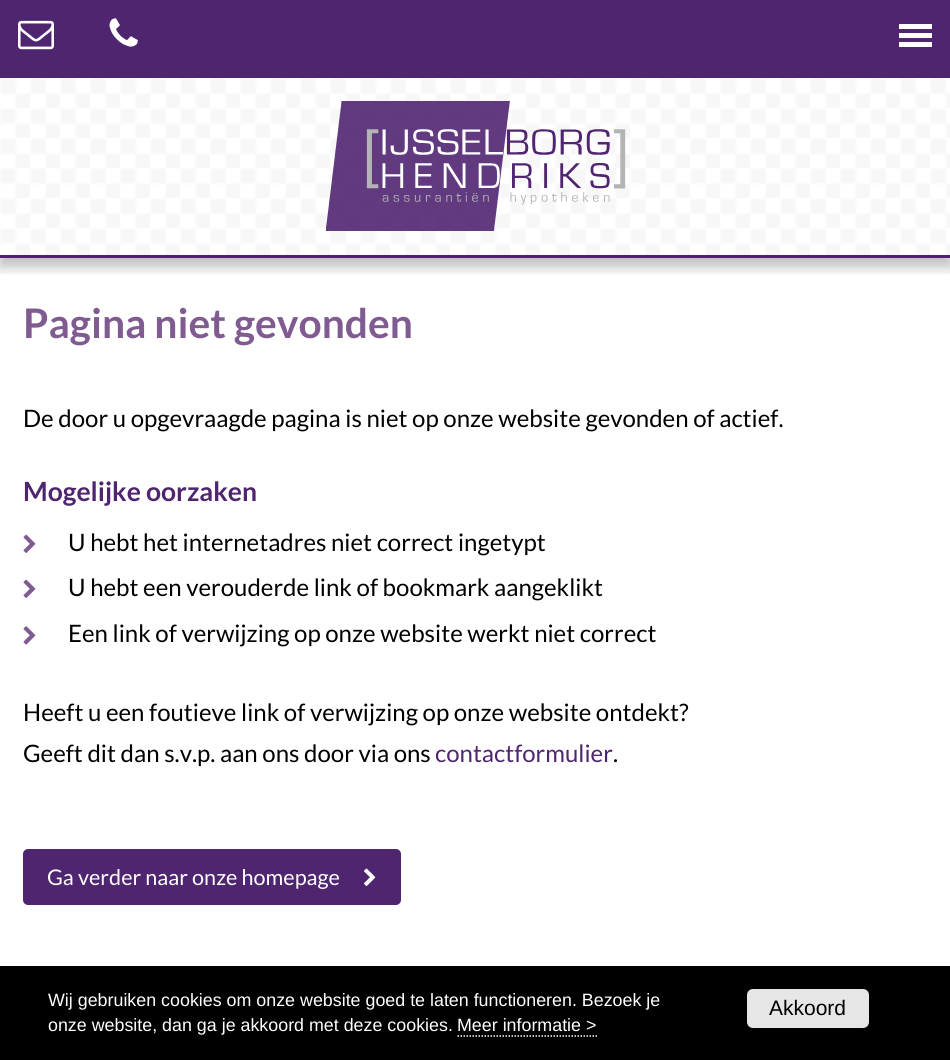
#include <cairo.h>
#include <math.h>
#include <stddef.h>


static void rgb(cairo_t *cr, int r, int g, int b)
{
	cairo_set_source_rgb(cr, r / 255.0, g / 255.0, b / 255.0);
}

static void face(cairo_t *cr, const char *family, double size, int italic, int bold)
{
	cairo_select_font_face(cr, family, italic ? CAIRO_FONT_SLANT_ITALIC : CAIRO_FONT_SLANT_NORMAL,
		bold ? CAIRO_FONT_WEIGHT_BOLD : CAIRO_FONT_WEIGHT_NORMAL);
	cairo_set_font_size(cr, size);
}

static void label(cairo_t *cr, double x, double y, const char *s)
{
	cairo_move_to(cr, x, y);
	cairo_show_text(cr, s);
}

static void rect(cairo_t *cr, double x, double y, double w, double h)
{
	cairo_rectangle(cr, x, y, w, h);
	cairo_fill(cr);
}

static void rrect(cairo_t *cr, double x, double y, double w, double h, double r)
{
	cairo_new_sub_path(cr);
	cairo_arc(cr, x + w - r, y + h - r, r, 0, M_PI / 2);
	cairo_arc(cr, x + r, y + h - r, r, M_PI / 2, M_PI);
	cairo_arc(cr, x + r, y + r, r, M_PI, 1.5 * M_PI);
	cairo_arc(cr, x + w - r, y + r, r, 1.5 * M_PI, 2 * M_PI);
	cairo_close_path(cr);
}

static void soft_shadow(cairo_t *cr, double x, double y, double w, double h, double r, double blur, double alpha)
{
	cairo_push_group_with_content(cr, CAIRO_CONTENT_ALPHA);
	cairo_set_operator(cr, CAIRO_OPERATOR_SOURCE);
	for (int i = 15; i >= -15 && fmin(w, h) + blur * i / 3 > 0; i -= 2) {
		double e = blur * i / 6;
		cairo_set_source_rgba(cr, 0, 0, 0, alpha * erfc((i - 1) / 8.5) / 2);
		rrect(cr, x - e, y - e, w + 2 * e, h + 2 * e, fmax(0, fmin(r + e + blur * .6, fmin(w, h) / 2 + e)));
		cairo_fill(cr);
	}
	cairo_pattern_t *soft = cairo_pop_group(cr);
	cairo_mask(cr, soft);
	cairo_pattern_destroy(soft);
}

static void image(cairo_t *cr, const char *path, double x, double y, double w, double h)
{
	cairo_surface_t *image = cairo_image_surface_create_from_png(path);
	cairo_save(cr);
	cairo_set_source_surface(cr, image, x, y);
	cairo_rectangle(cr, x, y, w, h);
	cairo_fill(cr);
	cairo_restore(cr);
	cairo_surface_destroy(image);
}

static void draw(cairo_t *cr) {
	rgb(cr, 255, 255, 255);
	cairo_paint(cr);
	cairo_save(cr);
	cairo_rectangle(cr, 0, 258, 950, 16);
	cairo_clip(cr);
	rgb(cr, 0, 0, 0);
	soft_shadow(cr, 0, 86, 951, 180, 0, 7.5, 0.15);
	cairo_restore(cr);
	image(cr, "image2.png", 0, 78, 950, 177);
	cairo_save(cr);
	cairo_rectangle(cr, 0, 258, 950, 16);
	cairo_clip(cr);
	rgb(cr, 0, 0, 0);
	soft_shadow(cr, 0, 86, 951, 180, 0, 7.5, 0.15);
	cairo_restore(cr);
	rgb(cr, 79, 37, 112);
	rect(cr, 0, 0, 950, 78);
	image(cr, "image0.png", 18, 20, 36, 30);
	image(cr, "image1.png", 109, 18, 29, 29);
	rgb(cr, 255, 255, 255);
	rect(cr, 899, 24, 33, 5);
	rect(cr, 899, 33, 33, 5);
	rect(cr, 899, 42, 33, 5);
	rgb(cr, 80, 31, 116);
	rect(cr, 0, 255, 950, 3);
	image(cr, "image3.png", 326, 101, 300, 130);
	face(cr, "Lato", 40.75, 0, 1);
	rgb(cr, 128, 91, 145);
	label(cr, 23, 338, "Pagina niet gevonden");
	face(cr, "Lato", 24, 0, 0);
	rgb(cr, 0, 0, 0);
	label(cr, 23, 427, "De door u opgevraagde pagina is niet op onze website gevonden of actief.");
	face(cr, "Lato", 26.5, 0, 1);
	rgb(cr, 79, 37, 112);
	label(cr, 23, 501, "Mogelijke oorzaken");
	image(cr, "image4.png", 23, 534, 13, 19);
	face(cr, "Lato", 24, 0, 0);
	rgb(cr, 0, 0, 0);
	label(cr, 68, 551, "U hebt het internetadres niet correct ingetypt");
	image(cr, "image4.png", 23, 579, 13, 19);
	label(cr, 68, 596, "U hebt een verouderde link of bookmark aangeklikt");
	image(cr, "image5.png", 23, 626, 13, 19);
	label(cr, 68, 642, "Een link of verwijzing op onze website werkt niet correct");
	label(cr, 23, 721, "Heeft u een foutieve link of verwijzing op onze website ontdekt?");
	label(cr, 23, 762, "Geeft dit dan s.v.p. aan ons door via ons");
	rgb(cr, 79, 37, 112);
	label(cr, 435, 762, "contactformulier");
	rgb(cr, 0, 0, 0);
	label(cr, 613, 762, ".");
	rgb(cr, 79, 37, 112);
	rrect(cr, 24, 850, 376, 54, 4);
	cairo_fill_preserve(cr);
	cairo_stroke(cr);
	face(cr, "Lato", 21.6, 0, 0);
	rgb(cr, 255, 255, 255);
	label(cr, 47, 885, "Ga verder naar onze homepage");
	image(cr, "image6.png", 364, 868, 12, 18);
	rgb(cr, 0, 0, 0);
	rect(cr, 0, 966, 950, 94);
	face(cr, "Liberation Sans", 17.85, 0, 0);
	rgb(cr, 255, 255, 255);
	label(cr, 48, 1006, "Wij gebruiken cookies om onze website goed te laten functioneren. Bezoek je");
	label(cr, 48, 1031, "onze website, dan ga je akkoord met deze cookies.");
	label(cr, 457, 1031, "Meer informatie >");
	cairo_new_path(cr);
	cairo_move_to(cr, 457.5, 1036);
	cairo_line_to(cr, 597, 1036);
	cairo_set_line_width(cr, 1.5);
	cairo_set_dash(cr, (double[]){1.5, 1.5}, 2, 0);
	cairo_stroke(cr);
	rgb(cr, 230, 230, 230);
	rrect(cr, 747, 989, 122, 39, 6);
	cairo_fill(cr);
	face(cr, "Liberation Sans", 21, 0, 0);
	rgb(cr, 0, 0, 0);
	label(cr, 769, 1015, "Akkoord");
}

int main(void) {
	cairo_surface_t *surface = cairo_image_surface_create(CAIRO_FORMAT_RGB24, 950, 1060);
	cairo_t *cr = cairo_create(surface);
	cairo_font_options_t *options = cairo_font_options_create();
	cairo_font_options_set_hint_metrics(options, CAIRO_HINT_METRICS_OFF);
	cairo_font_options_set_hint_style(options, CAIRO_HINT_STYLE_NONE);
	cairo_set_font_options(cr, options);
	cairo_set_miter_limit(cr, 4);
	draw(cr);
	cairo_surface_write_to_png(surface, "render.png");
	cairo_font_options_destroy(options);
	cairo_destroy(cr);
	cairo_surface_destroy(surface);
	return 0;
}
